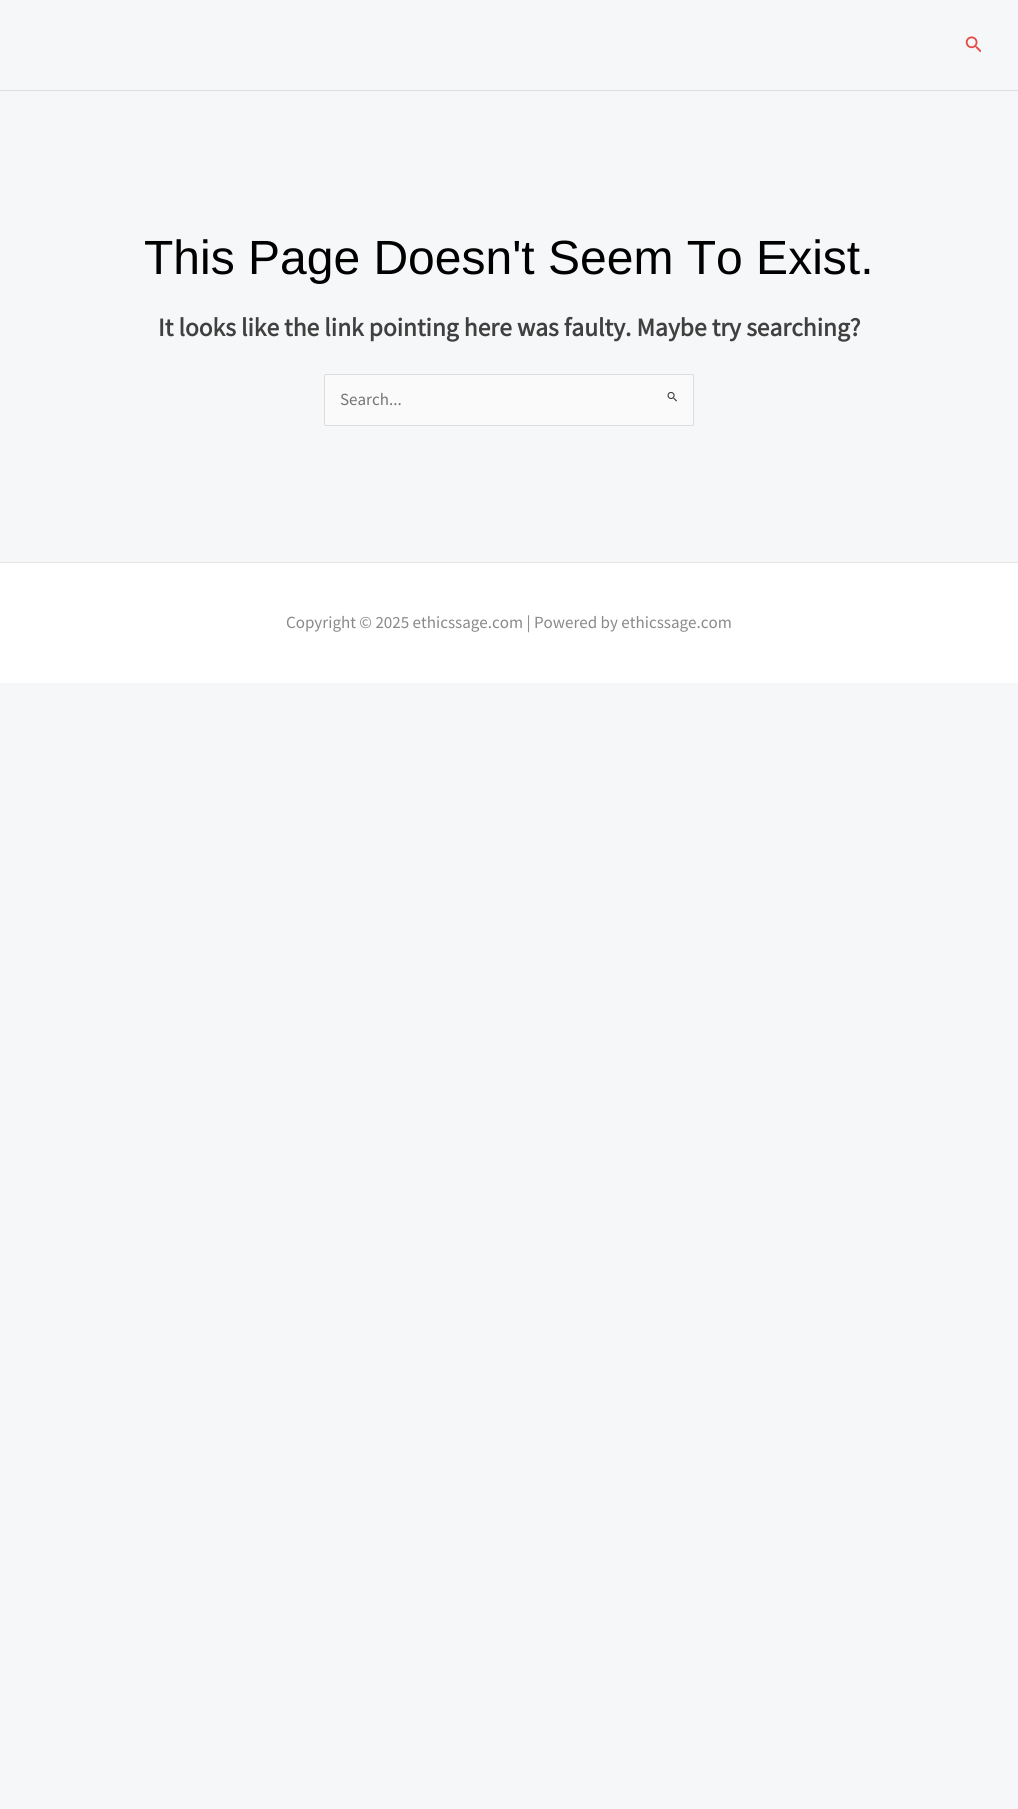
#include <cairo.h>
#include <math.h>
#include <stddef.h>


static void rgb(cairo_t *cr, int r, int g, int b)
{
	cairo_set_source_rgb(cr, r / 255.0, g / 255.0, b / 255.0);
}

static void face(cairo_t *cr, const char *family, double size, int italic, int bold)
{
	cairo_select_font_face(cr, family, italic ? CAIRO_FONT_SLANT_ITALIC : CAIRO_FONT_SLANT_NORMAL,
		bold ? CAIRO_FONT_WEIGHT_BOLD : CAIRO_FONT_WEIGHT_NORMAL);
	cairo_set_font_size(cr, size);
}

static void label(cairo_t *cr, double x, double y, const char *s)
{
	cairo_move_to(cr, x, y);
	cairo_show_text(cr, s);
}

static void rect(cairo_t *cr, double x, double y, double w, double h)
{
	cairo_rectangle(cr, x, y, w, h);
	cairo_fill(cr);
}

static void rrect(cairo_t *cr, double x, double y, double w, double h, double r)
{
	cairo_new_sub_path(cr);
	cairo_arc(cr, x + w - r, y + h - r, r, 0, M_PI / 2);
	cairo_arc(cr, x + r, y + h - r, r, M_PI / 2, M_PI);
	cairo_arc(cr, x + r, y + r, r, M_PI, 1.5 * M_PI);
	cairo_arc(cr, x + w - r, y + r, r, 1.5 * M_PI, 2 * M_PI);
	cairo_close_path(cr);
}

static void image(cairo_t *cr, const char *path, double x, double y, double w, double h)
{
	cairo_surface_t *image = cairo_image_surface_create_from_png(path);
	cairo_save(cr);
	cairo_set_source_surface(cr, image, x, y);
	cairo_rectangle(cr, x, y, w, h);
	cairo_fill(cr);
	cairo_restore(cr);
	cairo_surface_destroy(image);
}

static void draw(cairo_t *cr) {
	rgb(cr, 246, 247, 248);
	cairo_paint(cr);
	rgb(cr, 221, 222, 223);
	rect(cr, 0, 90, 1018, 1);
	image(cr, "image0.png", 965, 36, 16, 17);
	face(cr, "Liberation Sans", 48, 0, 0);
	rgb(cr, 0, 0, 0);
	label(cr, 144, 274, "This Page Doesn't Seem To Exist.");
	face(cr, "Source Sans Pro", 25.5, 0, 1);
	rgb(cr, 64, 64, 64);
	label(cr, 158, 336, "It looks like the link pointing here was faulty. Maybe try searching?");
	rgb(cr, 250, 250, 250);
	rrect(cr, 324.5, 374.5, 369, 51, 1.5);
	cairo_fill_preserve(cr);
	rgb(cr, 221, 221, 221);
	cairo_set_line_width(cr, 1);
	cairo_stroke(cr);
	face(cr, "Source Sans Pro", 17, 0, 0);
	rgb(cr, 117, 117, 117);
	label(cr, 340, 405, "Search...");
	image(cr, "image1.png", 667, 391, 10, 11);
	rgb(cr, 255, 255, 255);
	rect(cr, 0, 563, 1018, 120);
	rgb(cr, 230, 230, 230);
	rect(cr, 0, 562, 1018, 1);
	rgb(cr, 137, 137, 137);
	label(cr, 286, 628, "Copyright © 2025 ethicssage.com | Powered by ethicssage.com");
}

int main(void) {
	cairo_surface_t *surface = cairo_image_surface_create(CAIRO_FORMAT_RGB24, 1018, 1809);
	cairo_t *cr = cairo_create(surface);
	cairo_font_options_t *options = cairo_font_options_create();
	cairo_font_options_set_hint_metrics(options, CAIRO_HINT_METRICS_OFF);
	cairo_font_options_set_hint_style(options, CAIRO_HINT_STYLE_NONE);
	cairo_set_font_options(cr, options);
	cairo_set_miter_limit(cr, 4);
	draw(cr);
	cairo_surface_write_to_png(surface, "render.png");
	cairo_font_options_destroy(options);
	cairo_destroy(cr);
	cairo_surface_destroy(surface);
	return 0;
}
